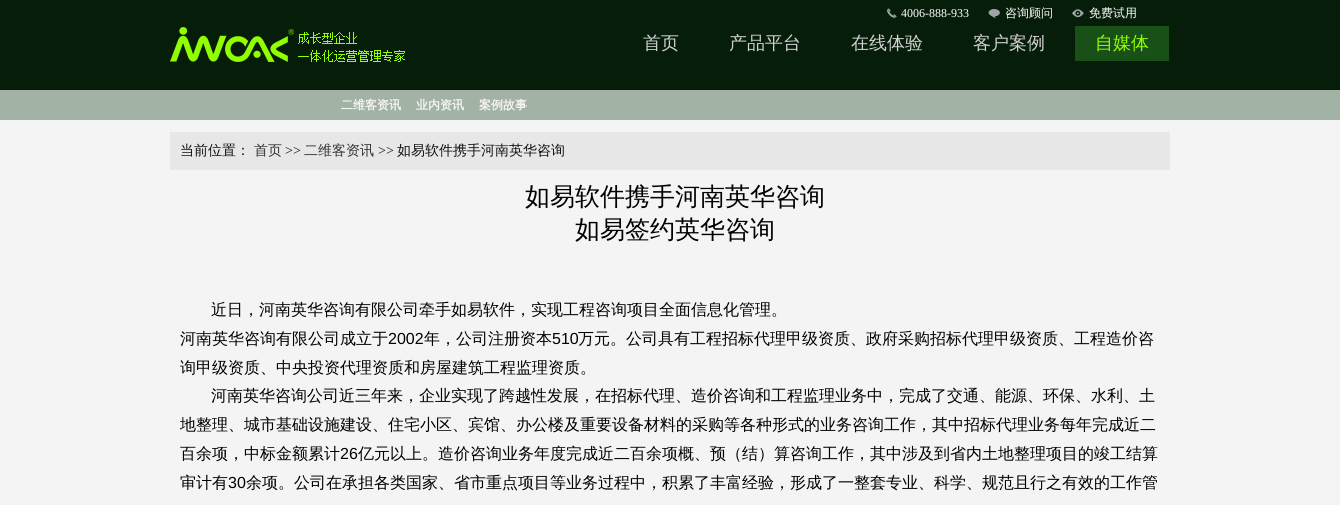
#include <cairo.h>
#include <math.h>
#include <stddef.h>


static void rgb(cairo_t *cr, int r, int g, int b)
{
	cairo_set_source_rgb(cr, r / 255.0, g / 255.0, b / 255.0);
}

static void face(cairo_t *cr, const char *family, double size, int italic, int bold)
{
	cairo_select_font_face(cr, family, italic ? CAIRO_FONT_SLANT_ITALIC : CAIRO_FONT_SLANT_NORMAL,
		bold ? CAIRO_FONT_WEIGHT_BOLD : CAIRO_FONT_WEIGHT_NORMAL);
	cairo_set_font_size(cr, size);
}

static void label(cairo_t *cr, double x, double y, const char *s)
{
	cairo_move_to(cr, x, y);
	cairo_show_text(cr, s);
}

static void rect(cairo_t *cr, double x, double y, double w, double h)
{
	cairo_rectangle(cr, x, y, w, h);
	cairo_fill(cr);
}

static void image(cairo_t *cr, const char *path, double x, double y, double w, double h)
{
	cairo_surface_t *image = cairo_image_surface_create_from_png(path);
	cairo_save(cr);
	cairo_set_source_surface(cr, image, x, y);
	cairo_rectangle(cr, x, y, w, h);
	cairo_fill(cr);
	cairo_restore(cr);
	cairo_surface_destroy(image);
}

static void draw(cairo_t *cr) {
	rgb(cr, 244, 244, 244);
	cairo_paint(cr);
	rgb(cr, 6, 30, 9);
	rect(cr, 0, 0, 1340, 90);
	image(cr, "image0.png", 170, 27, 235, 35);
	image(cr, "image1.png", 887, 8, 10, 10);
	face(cr, "Liberation Serif", 12, 0, 0);
	rgb(cr, 255, 255, 255);
	label(cr, 901, 17, "4006-888-933");
	image(cr, "image2.png", 988, 9, 12, 10);
	face(cr, "WenQuanYi Zen Hei Medium", 12, 0, 0);
	label(cr, 1005, 17, "咨询顾问");
	image(cr, "image3.png", 1072, 9, 12, 9);
	label(cr, 1089, 17, "免费试用");
	face(cr, "WenQuanYi Zen Hei Medium", 18, 0, 0);
	rgb(cr, 209, 209, 209);
	label(cr, 643, 49, "首页");
	label(cr, 729, 49, "产品平台");
	label(cr, 851, 49, "在线体验");
	label(cr, 973, 49, "客户案例");
	rgb(cr, 24, 80, 24);
	rect(cr, 1075, 26, 94, 35);
	rgb(cr, 146, 255, 0);
	label(cr, 1095, 49, "自媒体");
	rgb(cr, 162, 178, 165);
	rect(cr, 0, 90, 1340, 30);
	face(cr, "WenQuanYi Zen Hei", 12, 0, 1);
	rgb(cr, 245, 245, 245);
	label(cr, 341, 109, "二维客资讯");
	label(cr, 416, 109, "业内资讯");
	label(cr, 479, 109, "案例故事");
	rgb(cr, 231, 231, 231);
	rect(cr, 170, 132, 1000, 38);
	face(cr, "WenQuanYi Zen Hei Medium", 14, 0, 0);
	rgb(cr, 17, 17, 17);
	label(cr, 180, 155, "当前位置：");
	rgb(cr, 51, 51, 51);
	label(cr, 254, 155, "首页");
	face(cr, "Liberation Serif", 14, 0, 0);
	rgb(cr, 17, 17, 17);
	label(cr, 285, 155, ">>");
	face(cr, "WenQuanYi Zen Hei Medium", 14, 0, 0);
	rgb(cr, 51, 51, 51);
	label(cr, 304, 155, "二维客资讯");
	face(cr, "Liberation Serif", 14, 0, 0);
	rgb(cr, 17, 17, 17);
	label(cr, 378, 155, ">>");
	face(cr, "WenQuanYi Zen Hei Medium", 14, 0, 0);
	label(cr, 397, 155, "如易软件携手河南英华咨询");
	face(cr, "WenQuanYi Zen Hei Medium", 25, 0, 0);
	rgb(cr, 0, 0, 0);
	label(cr, 525, 205, "如易软件携手河南英华咨询");
	label(cr, 575, 238, "如易签约英华咨询");
	face(cr, "WenQuanYi Zen Hei Medium", 16, 0, 0);
	label(cr, 211, 315, "近日，河南英华咨询有限公司牵手如易软件，实现工程咨询项目全面信息化管理。");
	label(cr, 180, 344, "河南英华咨询有限公司成立于");
	face(cr, "Liberation Sans", 16, 0, 0);
	label(cr, 388, 344, "2002");
	face(cr, "WenQuanYi Zen Hei Medium", 16, 0, 0);
	label(cr, 424, 344, "年，公司注册资本");
	face(cr, "Liberation Sans", 16, 0, 0);
	label(cr, 552, 344, "510");
	face(cr, "WenQuanYi Zen Hei Medium", 16, 0, 0);
	label(cr, 578, 344, "万元。公司具有工程招标代理甲级资质、政府采购招标代理甲级资质、工程造价咨");
	label(cr, 180, 373, "询甲级资质、中央投资代理资质和房屋建筑工程监理资质。");
	label(cr, 211, 401, "河南英华咨询公司近三年来，企业实现了跨越性发展，在招标代理、造价咨询和工程监理业务中，完成了交通、能源、环保、水利、土");
	label(cr, 180, 430, "地整理、城市基础设施建设、住宅小区、宾馆、办公楼及重要设备材料的采购等各种形式的业务咨询工作，其中招标代理业务每年完成近二");
	label(cr, 180, 459, "百余项，中标金额累计");
	face(cr, "Liberation Sans", 16, 0, 0);
	label(cr, 340, 459, "26");
	face(cr, "WenQuanYi Zen Hei Medium", 16, 0, 0);
	label(cr, 358, 459, "亿元以上。造价咨询业务年度完成近二百余项概、预（结）算咨询工作，其中涉及到省内土地整理项目的竣工结算");
	label(cr, 180, 488, "审计有");
	face(cr, "Liberation Sans", 16, 0, 0);
	label(cr, 228, 488, "30");
	face(cr, "WenQuanYi Zen Hei Medium", 16, 0, 0);
	label(cr, 246, 488, "余项。公司在承担各类国家、省市重点项目等业务过程中，积累了丰富经验，形成了一整套专业、科学、规范且行之有效的工作管");
}

int main(void) {
	cairo_surface_t *surface = cairo_image_surface_create(CAIRO_FORMAT_RGB24, 1340, 505);
	cairo_t *cr = cairo_create(surface);
	cairo_font_options_t *options = cairo_font_options_create();
	cairo_font_options_set_hint_metrics(options, CAIRO_HINT_METRICS_OFF);
	cairo_font_options_set_hint_style(options, CAIRO_HINT_STYLE_NONE);
	cairo_set_font_options(cr, options);
	cairo_set_miter_limit(cr, 4);
	draw(cr);
	cairo_surface_write_to_png(surface, "render.png");
	cairo_font_options_destroy(options);
	cairo_destroy(cr);
	cairo_surface_destroy(surface);
	return 0;
}
